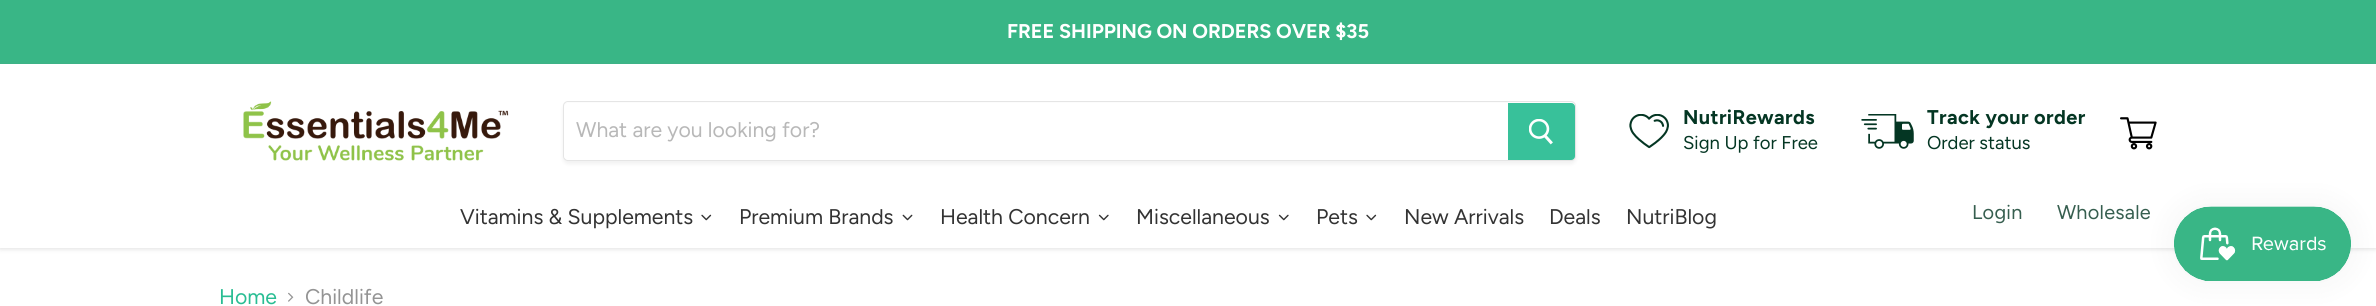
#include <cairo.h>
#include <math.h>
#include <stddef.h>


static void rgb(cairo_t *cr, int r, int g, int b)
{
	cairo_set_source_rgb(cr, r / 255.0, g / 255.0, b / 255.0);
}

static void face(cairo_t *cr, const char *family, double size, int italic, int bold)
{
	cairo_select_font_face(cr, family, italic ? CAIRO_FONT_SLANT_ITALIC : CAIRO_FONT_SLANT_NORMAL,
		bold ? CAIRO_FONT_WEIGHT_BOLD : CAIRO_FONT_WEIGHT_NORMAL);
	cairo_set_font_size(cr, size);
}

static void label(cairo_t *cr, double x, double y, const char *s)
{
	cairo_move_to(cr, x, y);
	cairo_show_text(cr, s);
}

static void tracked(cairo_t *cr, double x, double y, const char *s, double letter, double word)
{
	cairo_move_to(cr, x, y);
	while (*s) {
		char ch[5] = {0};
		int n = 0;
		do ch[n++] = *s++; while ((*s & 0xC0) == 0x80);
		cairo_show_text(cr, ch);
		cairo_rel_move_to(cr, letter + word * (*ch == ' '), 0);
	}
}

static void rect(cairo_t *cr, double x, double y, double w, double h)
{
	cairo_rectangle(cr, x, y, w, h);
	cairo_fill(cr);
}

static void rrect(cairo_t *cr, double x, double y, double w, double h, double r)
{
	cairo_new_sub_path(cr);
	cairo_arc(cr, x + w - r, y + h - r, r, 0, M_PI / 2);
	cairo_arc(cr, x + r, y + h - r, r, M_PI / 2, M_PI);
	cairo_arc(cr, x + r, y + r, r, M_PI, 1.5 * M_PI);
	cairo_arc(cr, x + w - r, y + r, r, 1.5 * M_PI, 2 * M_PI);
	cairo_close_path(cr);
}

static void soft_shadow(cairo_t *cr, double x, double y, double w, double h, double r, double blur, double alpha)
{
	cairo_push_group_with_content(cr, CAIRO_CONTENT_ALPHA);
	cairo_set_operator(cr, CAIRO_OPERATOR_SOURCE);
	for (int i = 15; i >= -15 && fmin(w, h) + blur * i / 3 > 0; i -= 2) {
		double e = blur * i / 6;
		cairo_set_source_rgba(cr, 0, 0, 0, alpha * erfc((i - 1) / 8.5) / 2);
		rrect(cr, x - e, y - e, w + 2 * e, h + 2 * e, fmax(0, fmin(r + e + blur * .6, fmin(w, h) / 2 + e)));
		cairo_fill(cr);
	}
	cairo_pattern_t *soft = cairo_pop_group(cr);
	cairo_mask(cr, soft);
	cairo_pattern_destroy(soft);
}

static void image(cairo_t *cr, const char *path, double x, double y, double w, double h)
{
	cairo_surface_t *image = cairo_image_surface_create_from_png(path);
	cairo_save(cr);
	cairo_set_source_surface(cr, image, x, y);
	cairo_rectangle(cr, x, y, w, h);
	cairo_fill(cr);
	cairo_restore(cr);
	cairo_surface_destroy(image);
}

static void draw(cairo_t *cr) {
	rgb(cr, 255, 255, 255);
	cairo_paint(cr);
	rgb(cr, 57, 182, 134);
	rect(cr, 0, 0, 2376, 64);
	face(cr, "Figtree", 19.9, 0, 1);
	rgb(cr, 255, 255, 255);
	label(cr, 1007, 38, "FREE SHIPPING ON ORDERS OVER $35");
	face(cr, "Figtree", 21.25, 0, 0);
	rgb(cr, 41, 189, 147);
	label(cr, 219, 304, "Home");
	image(cr, "image0.png", 288, 292, 6, 10);
	rgb(cr, 148, 148, 148);
	label(cr, 305, 304, "Childlife");
	rgb(cr, 128, 128, 128);
	soft_shadow(cr, 0, 65, 2376, 184, 0, 2.5, 0.25);
	rgb(cr, 255, 255, 255);
	rect(cr, 0, 64, 2376, 184);
	image(cr, "image1.png", 243, 101, 266, 60);
	rgb(cr, 128, 128, 128);
	soft_shadow(cr, 563, 104, 1013, 60, 5, 2, 0.11);
	rrect(cr, 563.5, 101.5, 1012, 59, 4.5);
	rgb(cr, 229, 229, 229);
	cairo_set_line_width(cr, 1);
	cairo_stroke(cr);
	rgb(cr, 255, 255, 255);
	cairo_new_path(cr);
	cairo_move_to(cr, 568, 103);
	cairo_line_to(cr, 1508, 103);
	cairo_line_to(cr, 1508, 160);
	cairo_line_to(cr, 568, 160);
	cairo_curve_to(cr, 566, 160, 564, 158, 564, 156);
	cairo_line_to(cr, 564, 107);
	cairo_curve_to(cr, 564, 105, 566, 103, 568, 103);
	cairo_close_path(cr);
	cairo_fill(cr);
	rgb(cr, 184, 184, 184);
	label(cr, 576, 137, "What are you looking for?");
	rgb(cr, 56, 193, 154);
	cairo_new_path(cr);
	cairo_move_to(cr, 1508.5, 103.5);
	cairo_line_to(cr, 1571, 103.5);
	cairo_curve_to(cr, 1573, 103.5, 1574.5, 105, 1574.5, 107);
	cairo_line_to(cr, 1574.5, 156);
	cairo_curve_to(cr, 1574.5, 158, 1573, 159.5, 1571, 159.5);
	cairo_line_to(cr, 1508.5, 159.5);
	cairo_close_path(cr);
	cairo_fill_preserve(cr);
	cairo_stroke(cr);
	image(cr, "image2.png", 1529, 119, 24, 26);
	image(cr, "image3.png", 1629, 114, 40, 35);
	face(cr, "Figtree", 19.9, 0, 1);
	rgb(cr, 4, 54, 35);
	tracked(cr, 1683, 124, "NutriRewards", 0.4, 0);
	face(cr, "Figtree", 18.5, 0, 0);
	label(cr, 1683, 149, "Sign Up for Free");
	image(cr, "image4.png", 1861, 114, 53, 35);
	face(cr, "Figtree", 19.9, 0, 1);
	tracked(cr, 1927, 124, "Track your order", 0.4, 0);
	face(cr, "Figtree", 18.5, 0, 0);
	label(cr, 1927, 149, "Order status");
	image(cr, "image5.png", 2120, 117, 37, 33);
	face(cr, "Figtree", 21.25, 0, 0);
	rgb(cr, 51, 51, 51);
	label(cr, 460, 224, "Vitamins & Supplements");
	image(cr, "image6.png", 701, 214, 11, 7);
	label(cr, 739, 224, "Premium Brands");
	image(cr, "image7.png", 902, 214, 11, 7);
	label(cr, 940, 224, "Health Concern");
	image(cr, "image8.png", 1098, 214, 11, 7);
	label(cr, 1136, 224, "Miscellaneous");
	image(cr, "image8.png", 1278, 214, 11, 7);
	label(cr, 1316, 224, "Pets");
	image(cr, "image6.png", 1366, 214, 11, 7);
	label(cr, 1404, 224, "New Arrivals");
	label(cr, 1549, 224, "Deals");
	label(cr, 1626, 224, "NutriBlog");
	face(cr, "Figtree", 19.9, 0, 0);
	rgb(cr, 54, 94, 79);
	tracked(cr, 1972, 219, "Login", 0.25, 0);
	tracked(cr, 2057, 219, "Wholesale", 0.25, 0);
	rgb(cr, 0, 0, 0);
	soft_shadow(cr, 2174, 206, 177, 75, 37.5, 15.5, 0.05);
	image(cr, "image9.png", 2174, 206, 177, 75);
}

int main(void) {
	cairo_surface_t *surface = cairo_image_surface_create(CAIRO_FORMAT_RGB24, 2376, 306);
	cairo_t *cr = cairo_create(surface);
	cairo_font_options_t *options = cairo_font_options_create();
	cairo_font_options_set_hint_metrics(options, CAIRO_HINT_METRICS_OFF);
	cairo_font_options_set_hint_style(options, CAIRO_HINT_STYLE_NONE);
	cairo_set_font_options(cr, options);
	cairo_set_miter_limit(cr, 4);
	draw(cr);
	cairo_surface_write_to_png(surface, "render.png");
	cairo_font_options_destroy(options);
	cairo_destroy(cr);
	cairo_surface_destroy(surface);
	return 0;
}
